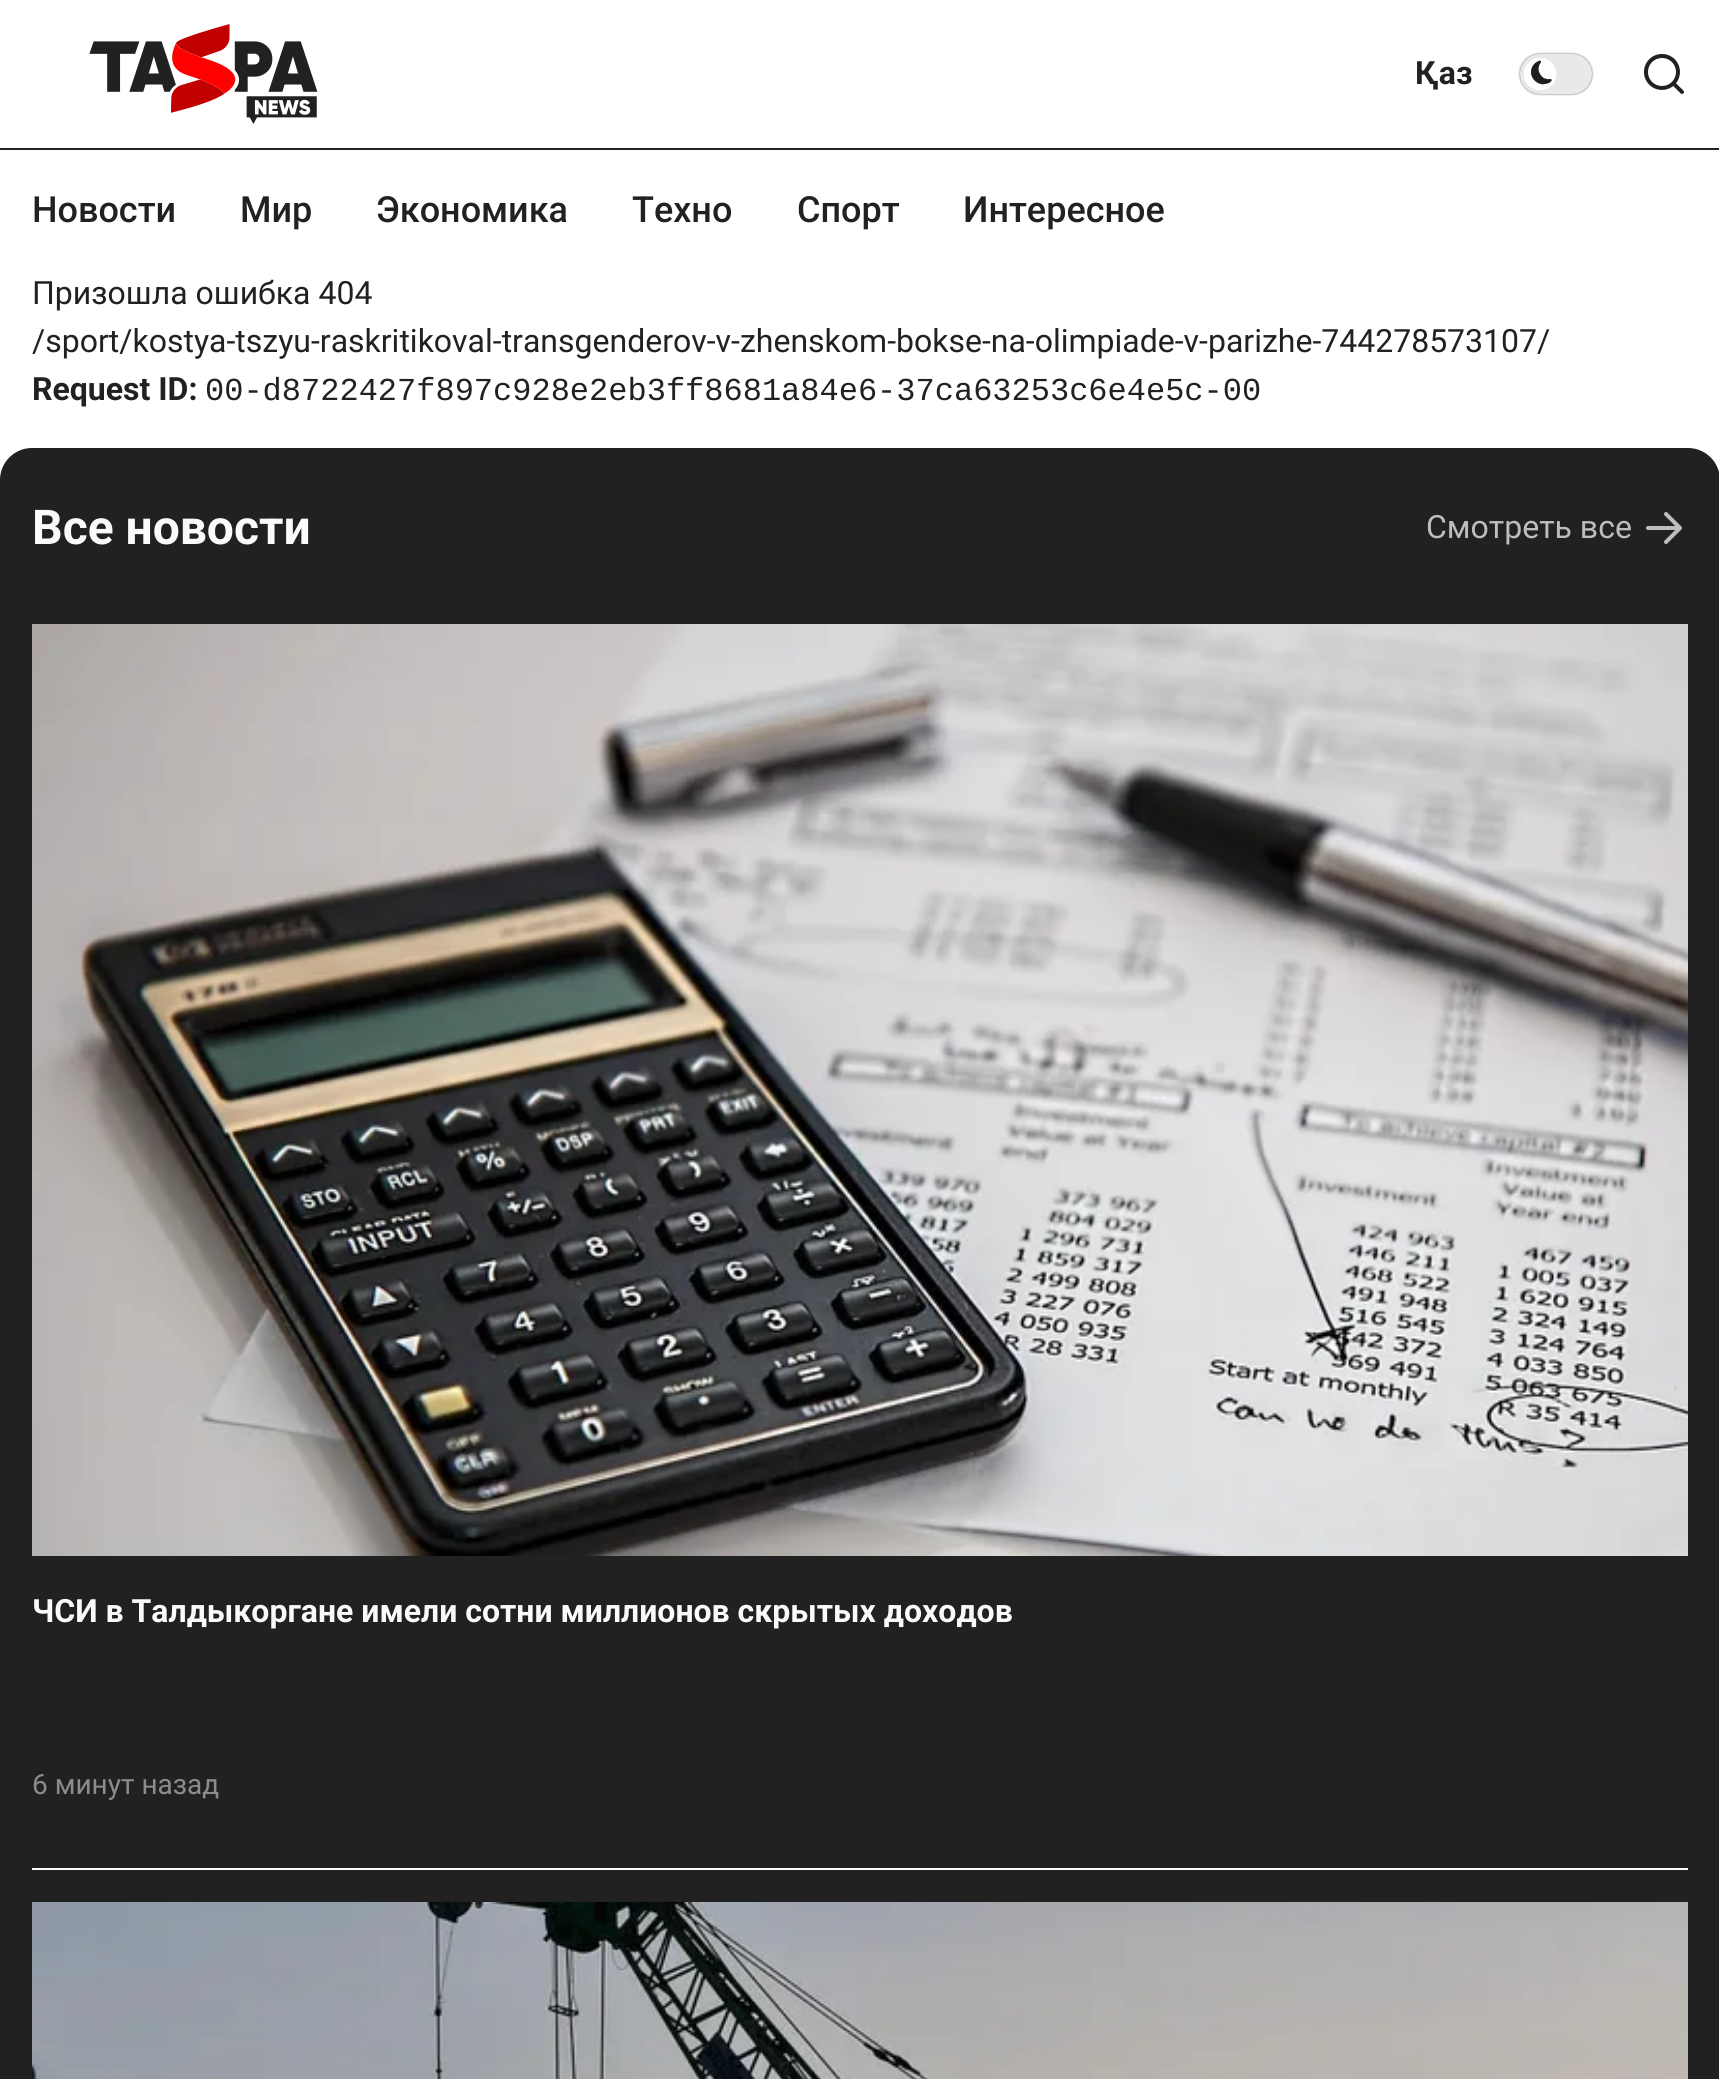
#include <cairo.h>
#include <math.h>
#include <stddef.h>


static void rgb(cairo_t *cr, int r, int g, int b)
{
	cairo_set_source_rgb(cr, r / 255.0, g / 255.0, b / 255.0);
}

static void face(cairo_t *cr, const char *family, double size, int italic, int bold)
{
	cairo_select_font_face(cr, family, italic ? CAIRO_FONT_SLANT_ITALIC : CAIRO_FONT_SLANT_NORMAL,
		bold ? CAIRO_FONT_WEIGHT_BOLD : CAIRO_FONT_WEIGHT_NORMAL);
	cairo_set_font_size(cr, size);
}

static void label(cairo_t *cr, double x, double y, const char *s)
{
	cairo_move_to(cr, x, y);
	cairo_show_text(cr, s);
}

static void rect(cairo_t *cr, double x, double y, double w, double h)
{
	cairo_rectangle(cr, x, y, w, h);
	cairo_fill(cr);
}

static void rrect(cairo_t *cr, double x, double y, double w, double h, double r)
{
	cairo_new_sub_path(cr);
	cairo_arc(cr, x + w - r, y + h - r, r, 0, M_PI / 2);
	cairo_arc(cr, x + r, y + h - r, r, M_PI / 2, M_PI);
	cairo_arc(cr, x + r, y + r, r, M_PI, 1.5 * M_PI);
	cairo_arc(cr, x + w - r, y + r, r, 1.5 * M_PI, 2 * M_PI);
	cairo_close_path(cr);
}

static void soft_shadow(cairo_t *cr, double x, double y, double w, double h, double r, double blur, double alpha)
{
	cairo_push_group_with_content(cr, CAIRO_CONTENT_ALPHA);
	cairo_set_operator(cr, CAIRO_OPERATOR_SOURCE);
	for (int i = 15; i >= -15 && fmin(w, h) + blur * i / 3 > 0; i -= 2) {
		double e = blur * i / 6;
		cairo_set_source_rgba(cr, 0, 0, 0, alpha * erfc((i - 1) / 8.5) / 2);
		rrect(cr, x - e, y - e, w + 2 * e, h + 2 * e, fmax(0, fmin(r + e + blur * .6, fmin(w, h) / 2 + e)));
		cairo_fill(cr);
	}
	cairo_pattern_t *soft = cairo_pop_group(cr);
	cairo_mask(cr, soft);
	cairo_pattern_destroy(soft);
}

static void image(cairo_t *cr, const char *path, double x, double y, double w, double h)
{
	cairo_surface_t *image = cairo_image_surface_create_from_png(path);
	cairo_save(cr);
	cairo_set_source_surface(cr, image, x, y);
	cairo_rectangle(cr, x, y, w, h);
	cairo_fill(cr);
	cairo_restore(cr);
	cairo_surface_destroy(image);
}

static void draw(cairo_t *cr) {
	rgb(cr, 255, 255, 255);
	cairo_paint(cr);
	rgb(cr, 33, 33, 33);
	rect(cr, 0, 148, 1719, 2);
	image(cr, "image0.png", 89, 24, 229, 100);
	face(cr, "Roboto", 32, 0, 1);
	label(cr, 1415, 84, "Қаз");
	rgb(cr, 51, 51, 51);
	soft_shadow(cr, 1520, 54, 72, 40, 20, 1, 0.8);
	rgb(cr, 233, 233, 234);
	rrect(cr, 1520, 54, 72, 40, 20);
	cairo_fill(cr);
	image(cr, "image1.png", 1523, 57, 34, 34);
	image(cr, "image2.png", 1643, 54, 41, 40);
	face(cr, "Roboto Medium", 36, 0, 0);
	rgb(cr, 33, 33, 33);
	label(cr, 32, 222, "Новости");
	label(cr, 240, 222, "Мир");
	label(cr, 376, 222, "Экономика");
	label(cr, 632, 222, "Техно");
	label(cr, 797, 222, "Спорт");
	label(cr, 963, 222, "Интересное");
	face(cr, "Roboto", 32, 0, 0);
	label(cr, 32, 304, "Призошла ошибка 404");
	label(cr, 32, 352, "/sport/kostya-tszyu-raskritikoval-transgenderov-v-zhenskom-bokse-na-olimpiade-v-parizhe-744278573107/");
	face(cr, "Roboto", 32, 0, 1);
	label(cr, 32, 400, "Request ID:");
	face(cr, "Liberation Mono", 32, 0, 0);
	label(cr, 205, 400, "00-d8722427f897c928e2eb3ff8681a84e6-37ca63253c6e4e5c-00");
	rrect(cr, 0, 448, 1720, 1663, 32);
	cairo_fill(cr);
	face(cr, "Roboto", 48, 0, 1);
	rgb(cr, 250, 250, 250);
	label(cr, 32, 544, "Все новости");
	face(cr, "Roboto", 32, 0, 0);
	rgb(cr, 189, 189, 189);
	label(cr, 1426, 538, "Смотреть все");
	cairo_new_path(cr);
	cairo_move_to(cr, 1648, 528);
	cairo_line_to(cr, 1680, 528);
	cairo_move_to(cr, 1680, 528);
	cairo_line_to(cr, 1666, 514);
	cairo_move_to(cr, 1680, 528);
	cairo_line_to(cr, 1666, 542);
	cairo_set_line_width(cr, 4);
	cairo_set_line_cap(cr, CAIRO_LINE_CAP_ROUND);
	cairo_set_line_join(cr, CAIRO_LINE_JOIN_ROUND);
	cairo_stroke(cr);
	rgb(cr, 255, 255, 255);
	rect(cr, 32, 1868, 1656, 2);
	image(cr, "image3.png", 32, 624, 1656, 932);
	face(cr, "Roboto", 32, 0, 1);
	rgb(cr, 250, 250, 250);
	label(cr, 32, 1622, "ЧСИ в Талдыкоргане имели сотни миллионов скрытых доходов");
	face(cr, "Roboto", 28, 0, 0);
	rgb(cr, 140, 140, 140);
	label(cr, 32, 1794, "6 минут назад");
	image(cr, "image4.png", 32, 1902, 1656, 177);
}

int main(void) {
	cairo_surface_t *surface = cairo_image_surface_create(CAIRO_FORMAT_RGB24, 1719, 2079);
	cairo_t *cr = cairo_create(surface);
	cairo_font_options_t *options = cairo_font_options_create();
	cairo_font_options_set_hint_metrics(options, CAIRO_HINT_METRICS_OFF);
	cairo_font_options_set_hint_style(options, CAIRO_HINT_STYLE_NONE);
	cairo_set_font_options(cr, options);
	cairo_set_miter_limit(cr, 4);
	draw(cr);
	cairo_surface_write_to_png(surface, "render.png");
	cairo_font_options_destroy(options);
	cairo_destroy(cr);
	cairo_surface_destroy(surface);
	return 0;
}
